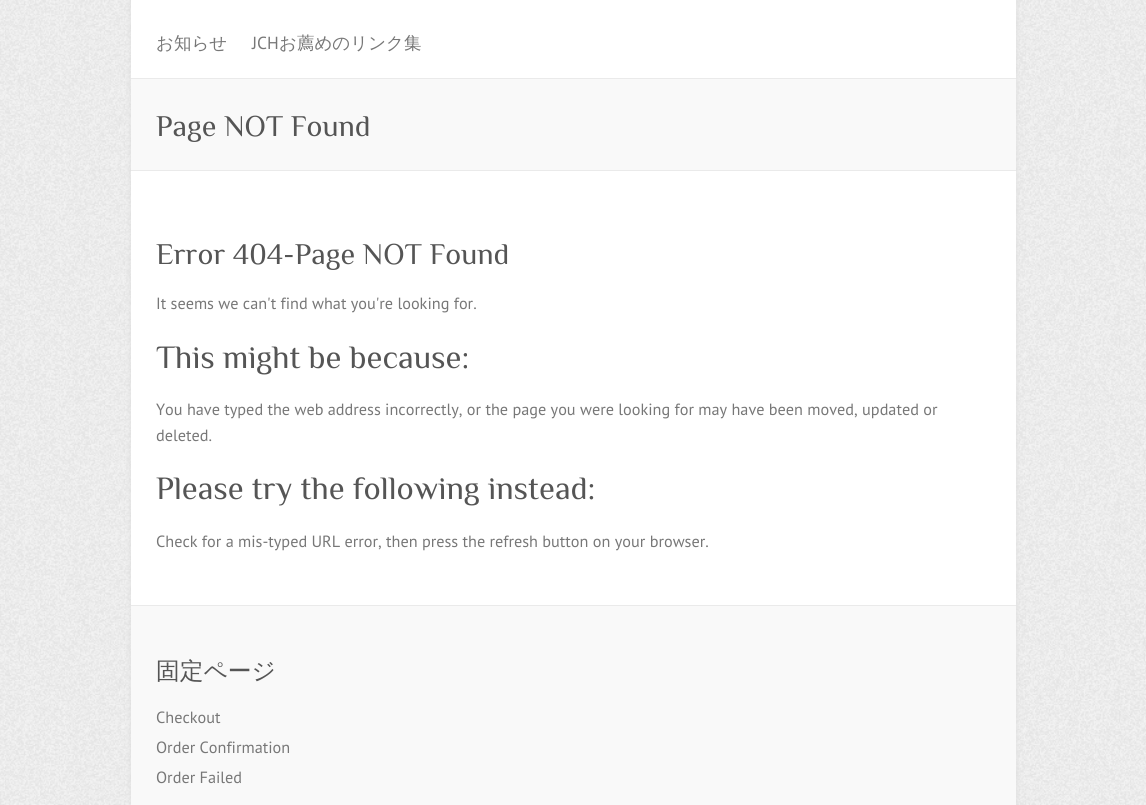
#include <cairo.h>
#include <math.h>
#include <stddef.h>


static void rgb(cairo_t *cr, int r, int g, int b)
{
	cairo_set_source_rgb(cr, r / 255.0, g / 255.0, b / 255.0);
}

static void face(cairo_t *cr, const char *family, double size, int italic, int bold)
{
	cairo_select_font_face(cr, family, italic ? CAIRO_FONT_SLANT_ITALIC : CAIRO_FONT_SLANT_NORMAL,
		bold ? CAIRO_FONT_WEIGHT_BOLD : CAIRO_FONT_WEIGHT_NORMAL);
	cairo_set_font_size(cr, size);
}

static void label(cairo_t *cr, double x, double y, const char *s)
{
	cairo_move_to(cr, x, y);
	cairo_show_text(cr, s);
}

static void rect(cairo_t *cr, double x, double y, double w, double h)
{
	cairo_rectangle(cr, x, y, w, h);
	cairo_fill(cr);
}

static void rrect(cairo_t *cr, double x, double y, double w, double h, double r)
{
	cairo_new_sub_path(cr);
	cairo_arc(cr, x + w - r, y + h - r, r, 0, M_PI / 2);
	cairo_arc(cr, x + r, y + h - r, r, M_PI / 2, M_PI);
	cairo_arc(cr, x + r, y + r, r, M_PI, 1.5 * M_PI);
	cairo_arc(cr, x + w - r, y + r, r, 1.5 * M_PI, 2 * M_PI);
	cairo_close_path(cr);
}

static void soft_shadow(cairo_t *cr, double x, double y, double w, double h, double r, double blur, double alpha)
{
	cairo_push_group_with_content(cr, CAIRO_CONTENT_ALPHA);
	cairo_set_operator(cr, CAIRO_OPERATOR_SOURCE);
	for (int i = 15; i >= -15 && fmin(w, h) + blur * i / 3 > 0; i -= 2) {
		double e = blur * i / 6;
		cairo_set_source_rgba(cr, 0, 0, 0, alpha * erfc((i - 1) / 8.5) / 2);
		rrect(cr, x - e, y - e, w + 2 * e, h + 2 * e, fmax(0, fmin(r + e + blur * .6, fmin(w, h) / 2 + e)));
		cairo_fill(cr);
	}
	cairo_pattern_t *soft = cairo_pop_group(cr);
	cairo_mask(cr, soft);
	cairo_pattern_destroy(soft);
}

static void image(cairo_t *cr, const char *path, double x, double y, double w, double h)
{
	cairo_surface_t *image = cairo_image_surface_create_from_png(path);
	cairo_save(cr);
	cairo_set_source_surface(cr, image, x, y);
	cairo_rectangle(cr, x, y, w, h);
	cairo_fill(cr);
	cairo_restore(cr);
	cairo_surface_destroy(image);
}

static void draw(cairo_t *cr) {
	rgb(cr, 255, 255, 255);
	cairo_paint(cr);
	image(cr, "image0.png", 0, 0, 1146, 805);
	rgb(cr, 221, 221, 221);
	soft_shadow(cr, 131, -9, 885, 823, 0, 3, 1);
	rgb(cr, 255, 255, 255);
	rect(cr, 131, 0, 885, 605);
	rgb(cr, 234, 234, 234);
	rect(cr, 131, 78, 885, 1);
	face(cr, "WenQuanYi Zen Hei Medium", 17.5, 0, 0);
	rgb(cr, 119, 119, 119);
	label(cr, 156, 49, "お知らせ");
	face(cr, "PT Sans", 17.5, 0, 0);
	label(cr, 252, 49, "JCH");
	face(cr, "WenQuanYi Zen Hei Medium", 17.5, 0, 0);
	label(cr, 279, 49, "お薦めのリンク集");
	rgb(cr, 249, 249, 249);
	rect(cr, 131, 79, 885, 91);
	rgb(cr, 234, 234, 234);
	rect(cr, 131, 170, 885, 1);
	face(cr, "Philosopher", 30, 0, 0);
	rgb(cr, 85, 85, 85);
	label(cr, 156, 136, "Page NOT Found");
	label(cr, 156, 264, "Error 404-Page NOT Found");
	face(cr, "PT Sans", 16.25, 0, 0);
	rgb(cr, 119, 119, 119);
	label(cr, 156, 309, "It seems we can't find what you're looking for.");
	face(cr, "Philosopher", 32.5, 0, 0);
	rgb(cr, 85, 85, 85);
	label(cr, 156, 368, "This might be because:");
	face(cr, "PT Sans", 16.25, 0, 0);
	rgb(cr, 119, 119, 119);
	label(cr, 156, 415, "You have typed the web address incorrectly, or the page you were looking for may have been moved, updated or");
	label(cr, 156, 441, "deleted.");
	face(cr, "Philosopher", 32.5, 0, 0);
	rgb(cr, 85, 85, 85);
	label(cr, 156, 499, "Please try the following instead:");
	face(cr, "PT Sans", 16.25, 0, 0);
	rgb(cr, 119, 119, 119);
	label(cr, 156, 547, "Check for a mis-typed URL error, then press the refresh button on your browser.");
	rgb(cr, 249, 249, 249);
	rect(cr, 131, 606, 885, 199);
	rgb(cr, 234, 234, 234);
	rect(cr, 131, 605, 885, 1);
	face(cr, "WenQuanYi Zen Hei Medium", 23.75, 0, 0);
	rgb(cr, 85, 85, 85);
	label(cr, 156, 679, "固定ページ");
	face(cr, "PT Sans", 16.25, 0, 0);
	rgb(cr, 119, 119, 119);
	label(cr, 156, 723, "Checkout");
	label(cr, 156, 753, "Order Confirmation");
	label(cr, 156, 783, "Order Failed");
}

int main(void) {
	cairo_surface_t *surface = cairo_image_surface_create(CAIRO_FORMAT_RGB24, 1146, 805);
	cairo_t *cr = cairo_create(surface);
	cairo_font_options_t *options = cairo_font_options_create();
	cairo_font_options_set_hint_metrics(options, CAIRO_HINT_METRICS_OFF);
	cairo_font_options_set_hint_style(options, CAIRO_HINT_STYLE_NONE);
	cairo_set_font_options(cr, options);
	cairo_set_miter_limit(cr, 4);
	draw(cr);
	cairo_surface_write_to_png(surface, "render.png");
	cairo_font_options_destroy(options);
	cairo_destroy(cr);
	cairo_surface_destroy(surface);
	return 0;
}
